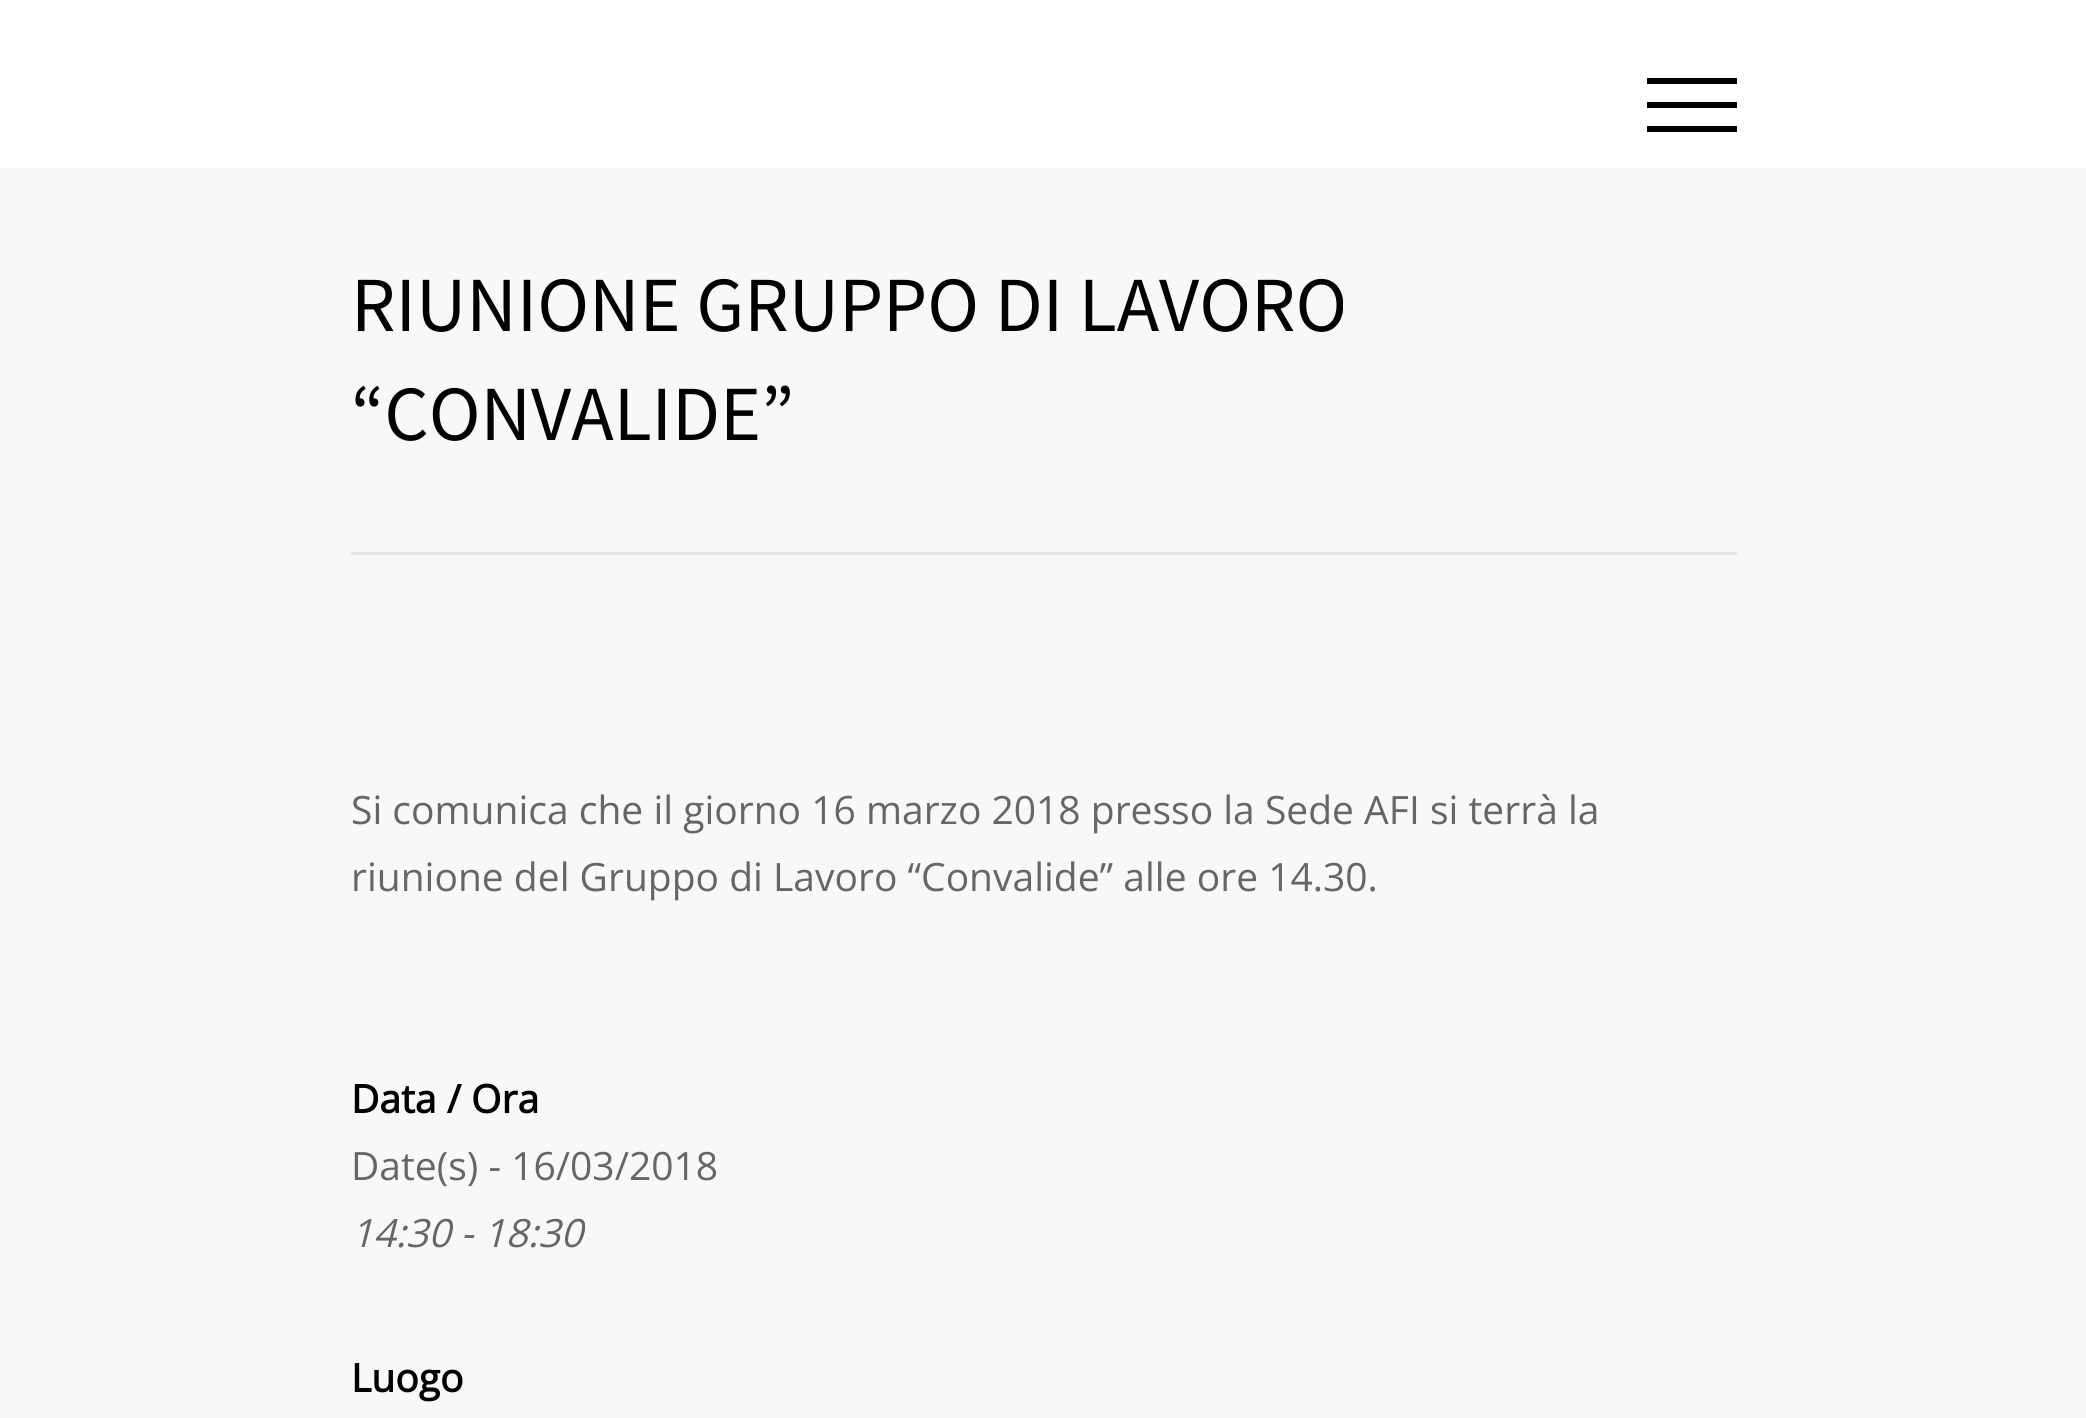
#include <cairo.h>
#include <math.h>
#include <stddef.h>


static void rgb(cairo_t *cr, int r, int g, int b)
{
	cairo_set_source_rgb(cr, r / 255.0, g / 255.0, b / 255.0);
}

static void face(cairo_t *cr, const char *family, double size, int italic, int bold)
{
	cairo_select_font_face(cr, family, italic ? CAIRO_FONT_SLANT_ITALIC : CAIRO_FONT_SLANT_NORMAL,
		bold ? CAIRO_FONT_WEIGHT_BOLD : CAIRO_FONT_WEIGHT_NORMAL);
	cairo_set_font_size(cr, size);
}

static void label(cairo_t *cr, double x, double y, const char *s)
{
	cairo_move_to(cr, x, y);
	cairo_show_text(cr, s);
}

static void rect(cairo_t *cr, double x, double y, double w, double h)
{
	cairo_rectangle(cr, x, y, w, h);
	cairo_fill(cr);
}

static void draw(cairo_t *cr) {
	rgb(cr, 248, 248, 248);
	cairo_paint(cr);
	rgb(cr, 255, 255, 255);
	rect(cr, 0, 0, 2086, 168);
	rgb(cr, 0, 0, 0);
	rect(cr, 1647, 78, 90, 6);
	rect(cr, 1647, 102, 90, 6);
	rect(cr, 1647, 126, 90, 6);
	rgb(cr, 229, 229, 229);
	rect(cr, 351, 552, 1386, 3);
	face(cr, "Source Sans Pro", 78, 0, 0);
	rgb(cr, 0, 0, 0);
	label(cr, 351, 331, "RIUNIONE GRUPPO DI LAVORO");
	label(cr, 351, 440, "“CONVALIDE”");
	face(cr, "Open Sans", 39, 0, 0);
	rgb(cr, 102, 102, 102);
	label(cr, 351, 824, "Si comunica che il giorno 16 marzo 2018 presso la Sede AFI si terrà la");
	label(cr, 351, 891, "riunione del Gruppo di Lavoro “Convalide” alle ore 14.30.");
	face(cr, "Open Sans", 39, 0, 1);
	rgb(cr, 0, 0, 0);
	label(cr, 351, 1113, "Data / Ora");
	face(cr, "Open Sans", 39, 0, 0);
	rgb(cr, 102, 102, 102);
	label(cr, 351, 1180, "Date(s) - 16/03/2018");
	face(cr, "Open Sans", 39, 1, 0);
	label(cr, 351, 1247, "14:30 - 18:30");
	face(cr, "Open Sans", 39, 0, 1);
	rgb(cr, 0, 0, 0);
	label(cr, 351, 1392, "Luogo");
}

int main(void) {
	cairo_surface_t *surface = cairo_image_surface_create(CAIRO_FORMAT_RGB24, 2086, 1418);
	cairo_t *cr = cairo_create(surface);
	cairo_font_options_t *options = cairo_font_options_create();
	cairo_font_options_set_hint_metrics(options, CAIRO_HINT_METRICS_OFF);
	cairo_font_options_set_hint_style(options, CAIRO_HINT_STYLE_NONE);
	cairo_set_font_options(cr, options);
	cairo_set_miter_limit(cr, 4);
	draw(cr);
	cairo_surface_write_to_png(surface, "render.png");
	cairo_font_options_destroy(options);
	cairo_destroy(cr);
	cairo_surface_destroy(surface);
	return 0;
}
